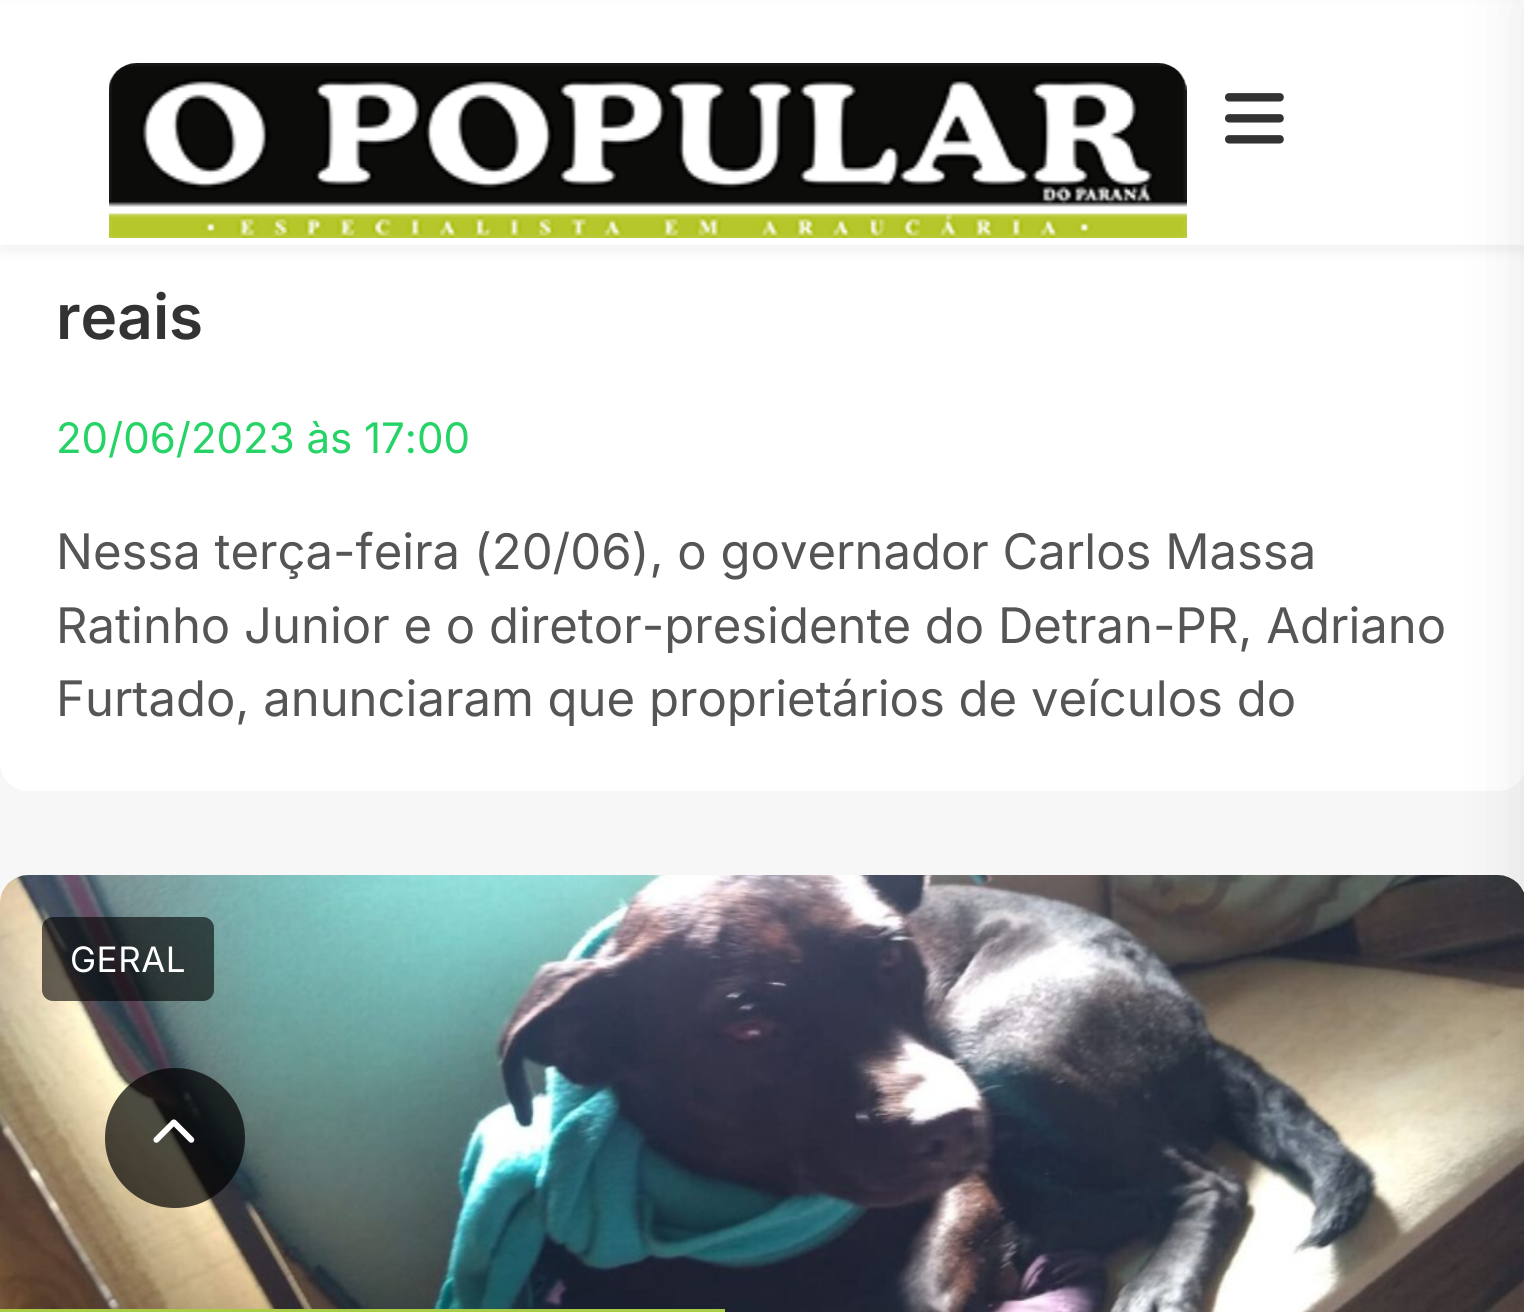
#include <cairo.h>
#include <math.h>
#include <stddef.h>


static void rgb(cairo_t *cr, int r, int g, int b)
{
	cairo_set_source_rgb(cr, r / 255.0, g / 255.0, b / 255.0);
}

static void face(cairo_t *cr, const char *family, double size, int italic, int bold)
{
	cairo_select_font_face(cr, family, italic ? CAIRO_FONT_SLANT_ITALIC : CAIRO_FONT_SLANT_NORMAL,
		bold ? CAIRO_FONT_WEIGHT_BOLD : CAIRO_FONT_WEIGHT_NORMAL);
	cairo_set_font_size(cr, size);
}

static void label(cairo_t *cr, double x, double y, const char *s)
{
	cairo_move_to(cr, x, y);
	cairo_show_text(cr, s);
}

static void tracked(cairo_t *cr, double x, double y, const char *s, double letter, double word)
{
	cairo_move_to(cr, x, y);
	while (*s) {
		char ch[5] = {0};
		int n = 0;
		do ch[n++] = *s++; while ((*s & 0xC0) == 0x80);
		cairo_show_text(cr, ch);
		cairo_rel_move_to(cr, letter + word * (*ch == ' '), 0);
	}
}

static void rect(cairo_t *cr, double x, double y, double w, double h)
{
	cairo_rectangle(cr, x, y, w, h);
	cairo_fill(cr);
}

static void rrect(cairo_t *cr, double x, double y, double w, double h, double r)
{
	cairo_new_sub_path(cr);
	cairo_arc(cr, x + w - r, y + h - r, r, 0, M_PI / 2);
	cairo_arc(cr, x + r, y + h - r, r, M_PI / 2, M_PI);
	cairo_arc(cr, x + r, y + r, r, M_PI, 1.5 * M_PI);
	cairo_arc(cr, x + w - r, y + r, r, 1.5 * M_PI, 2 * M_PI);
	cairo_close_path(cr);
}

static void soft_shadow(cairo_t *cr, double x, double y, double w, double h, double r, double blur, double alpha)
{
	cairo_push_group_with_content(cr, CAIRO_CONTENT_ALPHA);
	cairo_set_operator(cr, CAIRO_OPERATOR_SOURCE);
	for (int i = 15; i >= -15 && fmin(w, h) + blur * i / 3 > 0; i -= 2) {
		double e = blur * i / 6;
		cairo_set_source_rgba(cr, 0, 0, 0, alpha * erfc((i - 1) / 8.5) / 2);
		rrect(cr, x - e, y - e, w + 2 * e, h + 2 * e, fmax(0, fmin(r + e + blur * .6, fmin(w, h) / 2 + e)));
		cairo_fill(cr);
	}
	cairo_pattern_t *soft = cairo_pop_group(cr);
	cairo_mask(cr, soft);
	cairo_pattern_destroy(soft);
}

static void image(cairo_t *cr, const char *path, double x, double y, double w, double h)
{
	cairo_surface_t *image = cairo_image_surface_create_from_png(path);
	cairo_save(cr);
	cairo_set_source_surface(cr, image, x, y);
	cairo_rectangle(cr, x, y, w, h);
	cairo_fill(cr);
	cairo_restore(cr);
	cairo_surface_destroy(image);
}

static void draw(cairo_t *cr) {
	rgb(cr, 247, 247, 247);
	cairo_paint(cr);
	rgb(cr, 255, 255, 255);
	rrect(cr, 0, -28, 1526, 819, 28);
	cairo_fill(cr);
	rgb(cr, 0, 0, 0);
	soft_shadow(cr, 0, 7, 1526, 245, 0, 5, 0.05);
	rgb(cr, 255, 255, 255);
	rect(cr, 0, 3, 1524, 242);
	image(cr, "image0.png", 109, 63, 1078, 175);
	image(cr, "image1.png", 1225, 93, 59, 51);
	face(cr, "Inter SemiBold", 62, 0, 0);
	rgb(cr, 51, 51, 51);
	label(cr, 56, 339, "reais");
	face(cr, "Inter", 42, 0, 0);
	rgb(cr, 37, 211, 102);
	label(cr, 56, 453, "20/06/2023 às 17:00");
	face(cr, "Inter", 49, 0, 0);
	rgb(cr, 85, 85, 85);
	label(cr, 56, 569, "Nessa terça-feira (20/06), o governador Carlos Massa");
	label(cr, 56, 643, "Ratinho Junior e o diretor-presidente do Detran-PR, Adriano");
	label(cr, 56, 716, "Furtado, anunciaram que proprietários de veículos do");
	rgb(cr, 255, 255, 255);
	rrect(cr, 0, 875, 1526, 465, 28);
	cairo_fill(cr);
	image(cr, "image2.png", 0, 875, 1524, 437);
	cairo_set_source_rgba(cr, 0, 0, 0, 0.6);
	rrect(cr, 42, 917, 172, 84, 11);
	cairo_fill(cr);
	face(cr, "Inter", 35, 0, 0);
	rgb(cr, 255, 255, 255);
	tracked(cr, 70, 972, "GERAL", 0.5, 0);
	rgb(cr, 0, 0, 0);
	soft_shadow(cr, 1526, 0, 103, 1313, 0, 35, 0.1);
	cairo_set_source_rgba(cr, 0, 0, 0, 0.7);
	cairo_arc(cr, 175, 1138, 70, 0, 2 * M_PI);
	cairo_fill(cr);
	image(cr, "image3.png", 153, 1119, 42, 24);
	rgb(cr, 168, 204, 69);
	rect(cr, 0, 1309, 725, 3);
}

int main(void) {
	cairo_surface_t *surface = cairo_image_surface_create(CAIRO_FORMAT_RGB24, 1524, 1312);
	cairo_t *cr = cairo_create(surface);
	cairo_font_options_t *options = cairo_font_options_create();
	cairo_font_options_set_hint_metrics(options, CAIRO_HINT_METRICS_OFF);
	cairo_font_options_set_hint_style(options, CAIRO_HINT_STYLE_NONE);
	cairo_set_font_options(cr, options);
	cairo_set_miter_limit(cr, 4);
	draw(cr);
	cairo_surface_write_to_png(surface, "render.png");
	cairo_font_options_destroy(options);
	cairo_destroy(cr);
	cairo_surface_destroy(surface);
	return 0;
}
